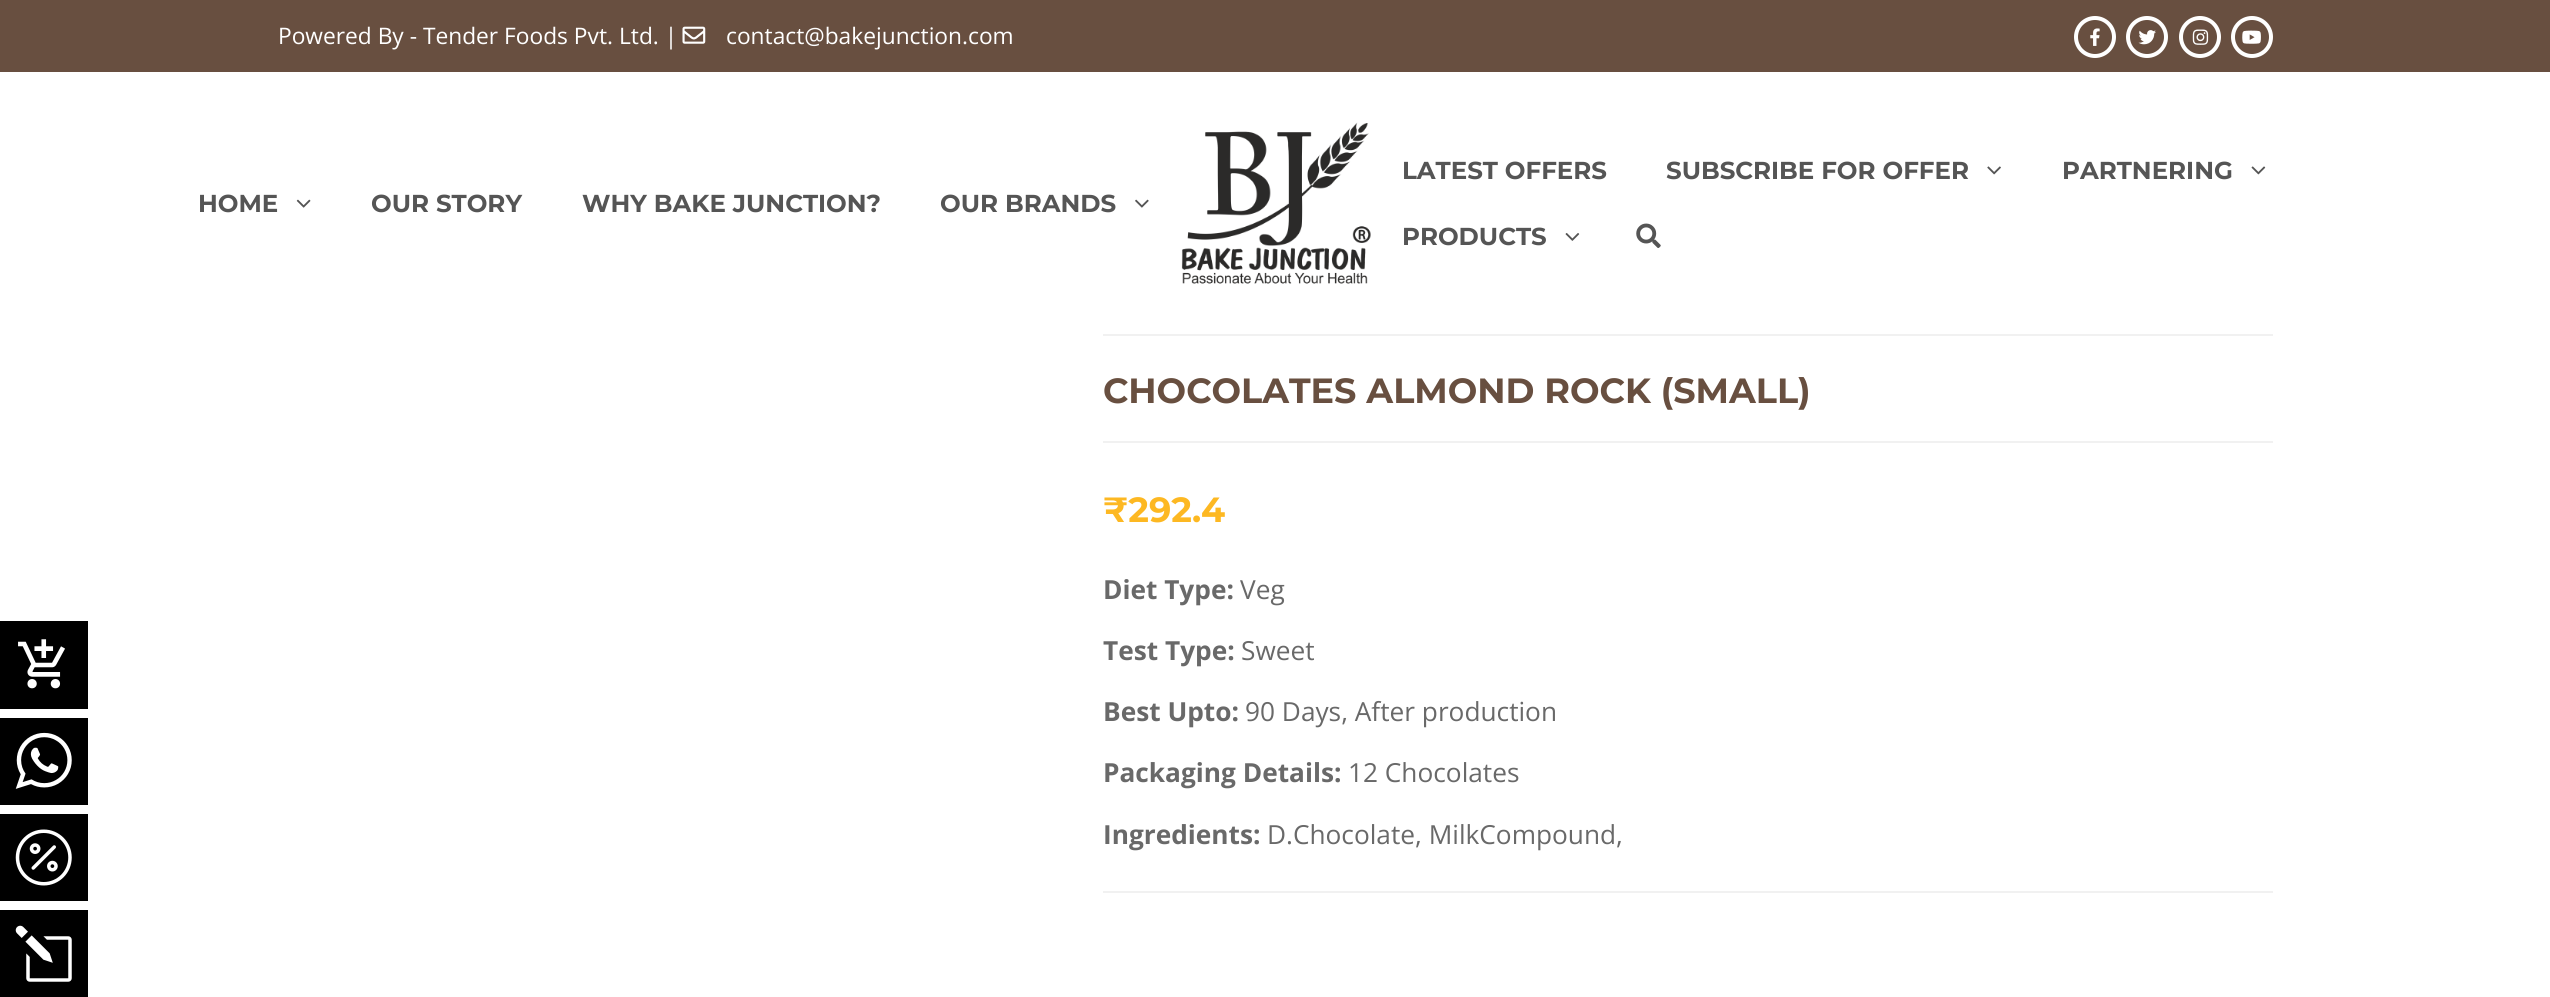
#include <cairo.h>
#include <math.h>
#include <stddef.h>


static void rgb(cairo_t *cr, int r, int g, int b)
{
	cairo_set_source_rgb(cr, r / 255.0, g / 255.0, b / 255.0);
}

static void face(cairo_t *cr, const char *family, double size, int italic, int bold)
{
	cairo_select_font_face(cr, family, italic ? CAIRO_FONT_SLANT_ITALIC : CAIRO_FONT_SLANT_NORMAL,
		bold ? CAIRO_FONT_WEIGHT_BOLD : CAIRO_FONT_WEIGHT_NORMAL);
	cairo_set_font_size(cr, size);
}

static void label(cairo_t *cr, double x, double y, const char *s)
{
	cairo_move_to(cr, x, y);
	cairo_show_text(cr, s);
}

static void rect(cairo_t *cr, double x, double y, double w, double h)
{
	cairo_rectangle(cr, x, y, w, h);
	cairo_fill(cr);
}

static void image(cairo_t *cr, const char *path, double x, double y, double w, double h)
{
	cairo_surface_t *image = cairo_image_surface_create_from_png(path);
	cairo_save(cr);
	cairo_set_source_surface(cr, image, x, y);
	cairo_rectangle(cr, x, y, w, h);
	cairo_fill(cr);
	cairo_restore(cr);
	cairo_surface_destroy(image);
}

static void draw(cairo_t *cr) {
	rgb(cr, 255, 255, 255);
	cairo_paint(cr);
	rgb(cr, 0, 0, 0);
	rect(cr, 0, 621, 88, 88);
	image(cr, "image0.png", 18, 639, 47, 50);
	rect(cr, 0, 718, 88, 87);
	image(cr, "image1.png", 15, 732, 57, 57);
	rect(cr, 0, 814, 88, 87);
	image(cr, "image2.png", 15, 829, 57, 57);
	rect(cr, 0, 910, 88, 87);
	image(cr, "image3.png", 15, 925, 57, 57);
	rgb(cr, 104, 79, 64);
	rect(cr, 0, 0, 2550, 72);
	face(cr, "Open Sans", 22.75, 0, 0);
	rgb(cr, 255, 255, 255);
	label(cr, 278, 44, "Powered By - Tender Foods Pvt. Ltd. |");
	image(cr, "image4.png", 682, 26, 24, 18);
	label(cr, 726, 44, "contact@bakejunction.com");
	cairo_new_path(cr);
	cairo_arc(cr, 2095, 37, 19, 0, 2 * M_PI);
	cairo_set_line_width(cr, 4);
	cairo_stroke(cr);
	image(cr, "image5.png", 2090, 28, 10, 18);
	cairo_arc(cr, 2147, 37, 19, 0, 2 * M_PI);
	cairo_stroke(cr);
	image(cr, "image6.png", 2138, 30, 18, 15);
	cairo_arc(cr, 2200, 37, 19, 0, 2 * M_PI);
	cairo_stroke(cr);
	image(cr, "image7.png", 2192, 29, 17, 16);
	cairo_arc(cr, 2252, 37, 19, 0, 2 * M_PI);
	cairo_stroke(cr);
	image(cr, "image8.png", 2242, 30, 19, 14);
	face(cr, "Montserrat", 24.5, 0, 1);
	rgb(cr, 85, 85, 85);
	label(cr, 198, 212, "HOME");
	image(cr, "image9.png", 296, 199, 15, 9);
	label(cr, 371, 212, "OUR STORY");
	label(cr, 582, 212, "WHY BAKE JUNCTION?");
	label(cr, 940, 212, "OUR BRANDS");
	image(cr, "image10.png", 1135, 199, 14, 9);
	image(cr, "image11.png", 1181, 122, 190, 162);
	label(cr, 1402, 179, "LATEST OFFERS");
	label(cr, 1666, 179, "SUBSCRIBE FOR OFFER");
	image(cr, "image12.png", 1987, 166, 14, 9);
	label(cr, 2062, 179, "PARTNERING");
	image(cr, "image13.png", 2251, 166, 15, 9);
	label(cr, 1402, 245, "PRODUCTS");
	image(cr, "image14.png", 1565, 233, 15, 8);
	image(cr, "image15.png", 1636, 223, 25, 25);
	rgb(cr, 241, 241, 241);
	rect(cr, 1103, 334, 1170, 2);
	rect(cr, 1103, 441, 1170, 2);
	face(cr, "Montserrat", 35, 0, 1);
	rgb(cr, 104, 79, 64);
	label(cr, 1103, 403, "CHOCOLATES ALMOND ROCK (SMALL)");
	rgb(cr, 253, 184, 34);
	label(cr, 1103, 522, "₹292.4");
	rgb(cr, 241, 241, 241);
	rect(cr, 1103, 891, 1170, 2);
	face(cr, "Open Sans", 26.25, 0, 1);
	rgb(cr, 105, 105, 105);
	label(cr, 1103, 599, "Diet Type:");
	face(cr, "Open Sans", 26.25, 0, 0);
	label(cr, 1240, 599, "Veg");
	face(cr, "Open Sans", 26.25, 0, 1);
	label(cr, 1103, 660, "Test Type:");
	face(cr, "Open Sans", 26.25, 0, 0);
	label(cr, 1241, 660, "Sweet");
	face(cr, "Open Sans", 26.25, 0, 1);
	label(cr, 1103, 721, "Best Upto:");
	face(cr, "Open Sans", 26.25, 0, 0);
	label(cr, 1245, 721, "90 Days, After production");
	face(cr, "Open Sans", 26.25, 0, 1);
	label(cr, 1103, 782, "Packaging Details:");
	face(cr, "Open Sans", 26.25, 0, 0);
	label(cr, 1348, 782, "12 Chocolates");
	face(cr, "Open Sans", 26.25, 0, 1);
	label(cr, 1103, 844, "Ingredients:");
	face(cr, "Open Sans", 26.25, 0, 0);
	label(cr, 1267, 844, "D.Chocolate, MilkCompound,");
}

int main(void) {
	cairo_surface_t *surface = cairo_image_surface_create(CAIRO_FORMAT_RGB24, 2550, 997);
	cairo_t *cr = cairo_create(surface);
	cairo_font_options_t *options = cairo_font_options_create();
	cairo_font_options_set_hint_metrics(options, CAIRO_HINT_METRICS_OFF);
	cairo_font_options_set_hint_style(options, CAIRO_HINT_STYLE_NONE);
	cairo_set_font_options(cr, options);
	cairo_set_miter_limit(cr, 4);
	draw(cr);
	cairo_surface_write_to_png(surface, "render.png");
	cairo_font_options_destroy(options);
	cairo_destroy(cr);
	cairo_surface_destroy(surface);
	return 0;
}
